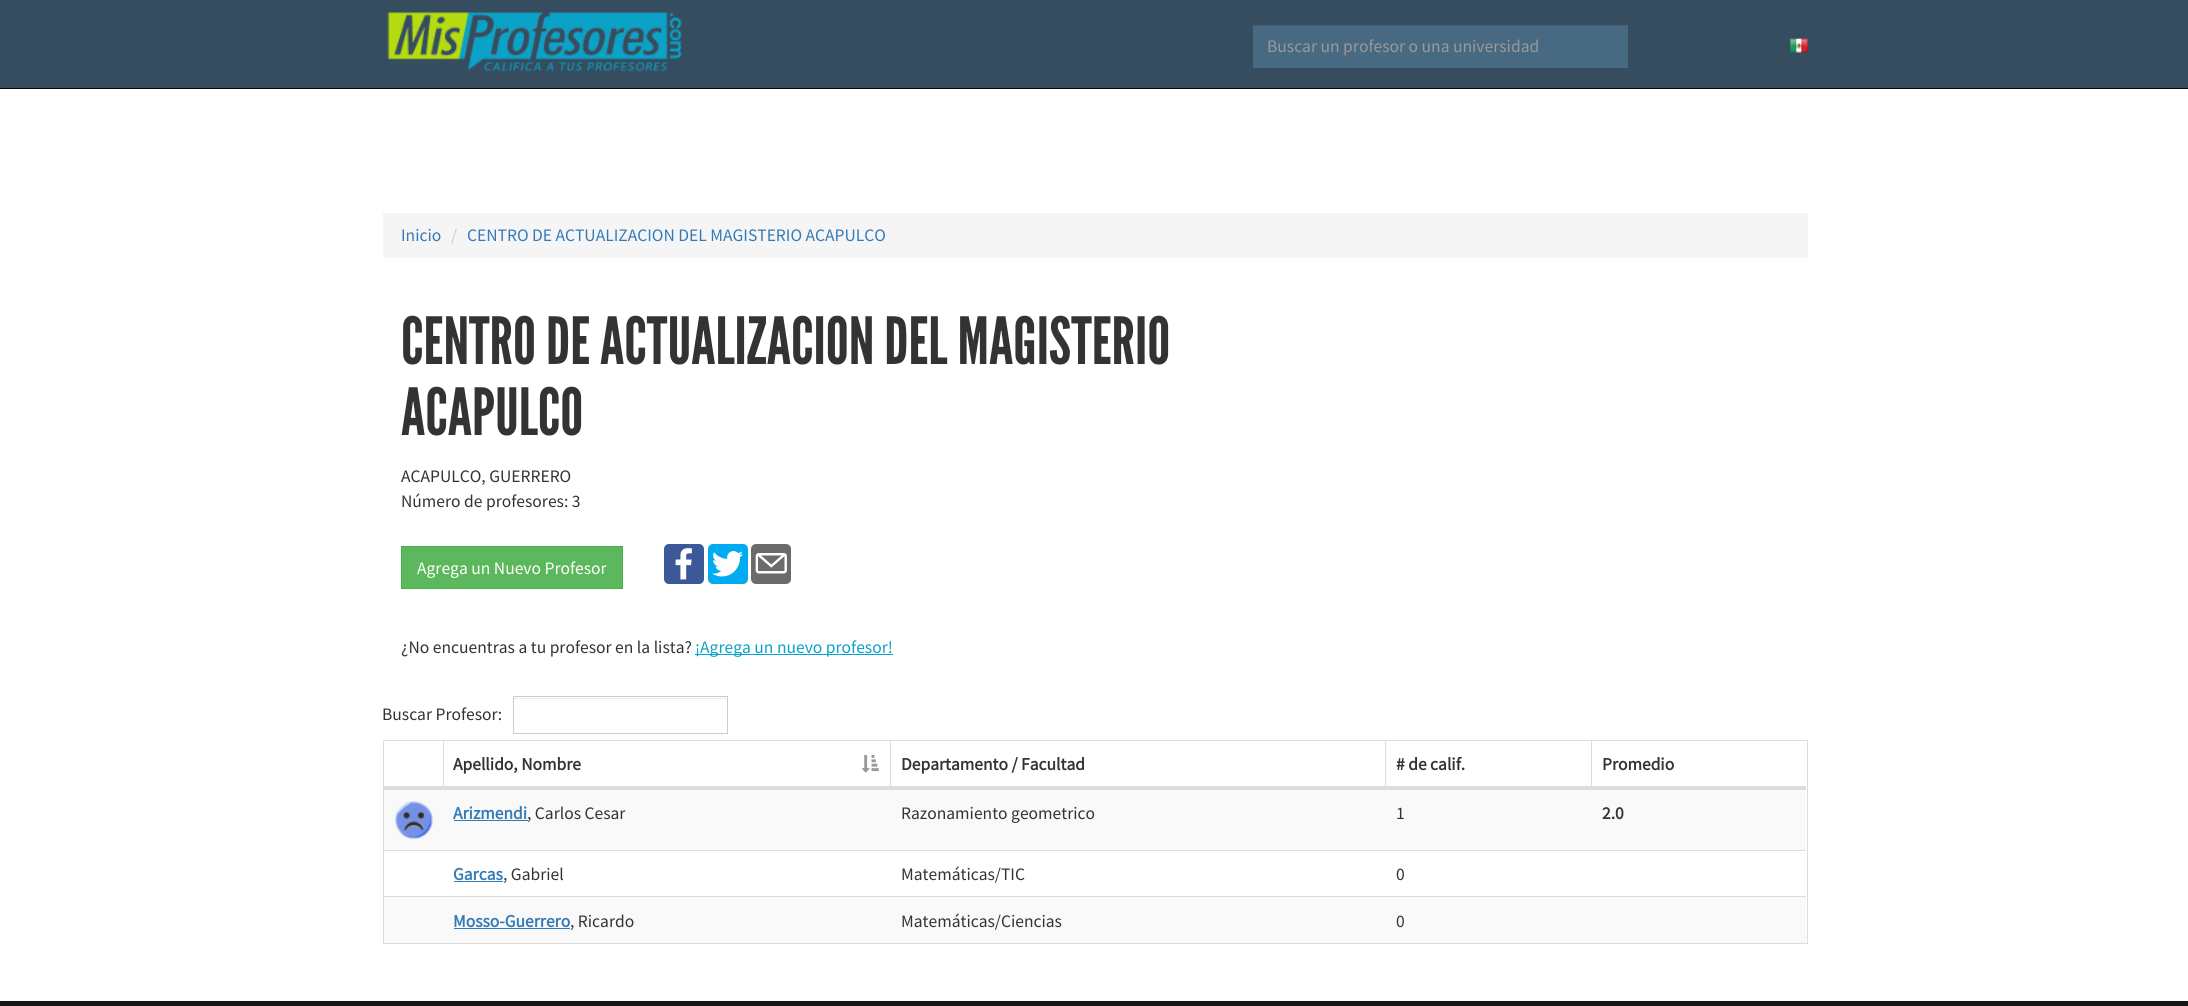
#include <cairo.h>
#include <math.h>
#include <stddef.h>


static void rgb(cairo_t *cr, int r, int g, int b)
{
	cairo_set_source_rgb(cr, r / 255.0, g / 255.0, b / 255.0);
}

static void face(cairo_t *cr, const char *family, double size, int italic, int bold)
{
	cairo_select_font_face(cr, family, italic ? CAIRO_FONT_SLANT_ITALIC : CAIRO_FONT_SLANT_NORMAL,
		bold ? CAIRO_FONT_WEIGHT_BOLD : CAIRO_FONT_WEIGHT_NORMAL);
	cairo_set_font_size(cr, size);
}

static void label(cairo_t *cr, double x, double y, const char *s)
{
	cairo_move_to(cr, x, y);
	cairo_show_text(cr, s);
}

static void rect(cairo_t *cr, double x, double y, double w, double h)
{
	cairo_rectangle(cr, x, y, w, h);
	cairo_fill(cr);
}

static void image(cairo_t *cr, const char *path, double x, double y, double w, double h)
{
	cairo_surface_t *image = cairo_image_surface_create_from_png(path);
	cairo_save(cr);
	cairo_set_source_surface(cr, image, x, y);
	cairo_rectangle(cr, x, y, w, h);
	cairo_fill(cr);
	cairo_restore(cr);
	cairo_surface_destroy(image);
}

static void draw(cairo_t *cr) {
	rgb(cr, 255, 255, 255);
	cairo_paint(cr);
	rgb(cr, 53, 77, 95);
	rect(cr, 0, 0, 2188, 88);
	rgb(cr, 8, 8, 8);
	rect(cr, 0, 88, 2188, 1);
	image(cr, "image0.png", 387, 12, 296, 60);
	rgb(cr, 72, 105, 130);
	rect(cr, 1253, 26, 375, 42);
	rgb(cr, 67, 97, 120);
	rect(cr, 1253, 25, 375, 1);
	face(cr, "Source Sans Pro", 17.5, 0, 0);
	rgb(cr, 153, 153, 153);
	label(cr, 1267, 52, "Buscar un profesor o una universidad");
	image(cr, "image1.png", 1789, 38, 19, 15);
	rgb(cr, 245, 245, 245);
	rect(cr, 383, 213, 1425, 45);
	rgb(cr, 51, 122, 183);
	label(cr, 401, 241, "Inicio");
	rgb(cr, 204, 204, 204);
	label(cr, 451, 241, "/");
	rgb(cr, 51, 122, 183);
	label(cr, 467, 241, "CENTRO DE ACTUALIZACION DEL MAGISTERIO ACAPULCO");
	face(cr, "League Gothic", 65, 0, 0);
	rgb(cr, 51, 51, 51);
	label(cr, 401, 364, "CENTRO DE ACTUALIZACION DEL MAGISTERIO");
	label(cr, 401, 435, "ACAPULCO");
	face(cr, "Source Sans Pro", 17.5, 0, 0);
	label(cr, 401, 482, "ACAPULCO, GUERRERO");
	label(cr, 401, 507, "Número de profesores: 3");
	rgb(cr, 92, 184, 92);
	cairo_rectangle(cr, 401.5, 546.5, 221, 42);
	cairo_fill_preserve(cr);
	rgb(cr, 76, 174, 76);
	cairo_set_line_width(cr, 1);
	cairo_stroke(cr);
	rgb(cr, 255, 255, 255);
	label(cr, 417, 574, "Agrega un Nuevo Profesor");
	image(cr, "image2.png", 664, 544, 40, 40);
	image(cr, "image3.png", 708, 544, 40, 40);
	image(cr, "image4.png", 751, 544, 40, 40);
	rgb(cr, 51, 51, 51);
	label(cr, 401, 653, "¿No encuentras a tu profesor en la lista?");
	rgb(cr, 11, 162, 199);
	rect(cr, 695, 654, 198, 1);
	label(cr, 695, 653, "¡Agrega un nuevo profesor!");
	rgb(cr, 51, 51, 51);
	label(cr, 382, 720, "Buscar Profesor:");
	rgb(cr, 236, 236, 236);
	rect(cr, 514, 698, 212, 1);
	cairo_rectangle(cr, 513.5, 696.5, 214, 37);
	rgb(cr, 204, 204, 204);
	cairo_stroke(cr);
	cairo_rectangle(cr, 383.5, 740.5, 1424, 203);
	rgb(cr, 221, 221, 221);
	cairo_stroke(cr);
	rect(cr, 443, 741, 1, 48);
	rect(cr, 384, 786, 60, 4);
	rect(cr, 890, 741, 1, 48);
	rect(cr, 444, 786, 447, 3);
	face(cr, "Source Sans Pro", 17.5, 0, 1);
	rgb(cr, 51, 51, 51);
	label(cr, 453, 770, "Apellido, Nombre");
	image(cr, "image5.png", 861, 755, 18, 18);
	rgb(cr, 221, 221, 221);
	rect(cr, 1385, 741, 1, 48);
	rect(cr, 891, 786, 495, 3);
	rgb(cr, 51, 51, 51);
	label(cr, 901, 770, "Departamento / Facultad");
	rgb(cr, 221, 221, 221);
	rect(cr, 1591, 741, 1, 48);
	rect(cr, 1386, 786, 420, 3);
	rgb(cr, 51, 51, 51);
	label(cr, 1396, 770, "# de calif.");
	label(cr, 1602, 770, "Promedio");
	rgb(cr, 249, 249, 249);
	rect(cr, 384, 790, 1422, 60);
	image(cr, "image6.png", 395, 801, 38, 38);
	rgb(cr, 221, 221, 221);
	rect(cr, 444, 789, 1362, 1);
	rgb(cr, 51, 122, 183);
	label(cr, 453, 819, "Arizmendi");
	rect(cr, 454, 820, 74, 1);
	face(cr, "Source Sans Pro", 17.5, 0, 0);
	rgb(cr, 51, 51, 51);
	label(cr, 527, 819, ", Carlos Cesar");
	label(cr, 901, 819, "Razonamiento geometrico");
	label(cr, 1396, 819, "1");
	face(cr, "Source Sans Pro", 17.5, 0, 1);
	label(cr, 1602, 819, "2.0");
	rgb(cr, 221, 221, 221);
	rect(cr, 384, 850, 1422, 1);
	rgb(cr, 51, 122, 183);
	label(cr, 453, 880, "Garcas");
	rect(cr, 454, 881, 49, 1);
	face(cr, "Source Sans Pro", 17.5, 0, 0);
	rgb(cr, 51, 51, 51);
	label(cr, 503, 880, ", Gabriel");
	label(cr, 901, 880, "Matemáticas/TIC");
	label(cr, 1396, 880, "0");
	rgb(cr, 249, 249, 249);
	rect(cr, 384, 897, 1422, 46);
	rgb(cr, 221, 221, 221);
	rect(cr, 384, 896, 1422, 1);
	face(cr, "Source Sans Pro", 17.5, 0, 1);
	rgb(cr, 51, 122, 183);
	label(cr, 453, 927, "Mosso-Guerrero");
	rect(cr, 454, 928, 116, 1);
	face(cr, "Source Sans Pro", 17.5, 0, 0);
	rgb(cr, 51, 51, 51);
	label(cr, 570, 927, ", Ricardo");
	label(cr, 901, 927, "Matemáticas/Ciencias");
	label(cr, 1396, 927, "0");
	rgb(cr, 23, 23, 23);
	rect(cr, 0, 1001, 2188, 5);
}

int main(void) {
	cairo_surface_t *surface = cairo_image_surface_create(CAIRO_FORMAT_RGB24, 2188, 1006);
	cairo_t *cr = cairo_create(surface);
	cairo_font_options_t *options = cairo_font_options_create();
	cairo_font_options_set_hint_metrics(options, CAIRO_HINT_METRICS_OFF);
	cairo_font_options_set_hint_style(options, CAIRO_HINT_STYLE_NONE);
	cairo_set_font_options(cr, options);
	cairo_set_miter_limit(cr, 4);
	draw(cr);
	cairo_surface_write_to_png(surface, "render.png");
	cairo_font_options_destroy(options);
	cairo_destroy(cr);
	cairo_surface_destroy(surface);
	return 0;
}
